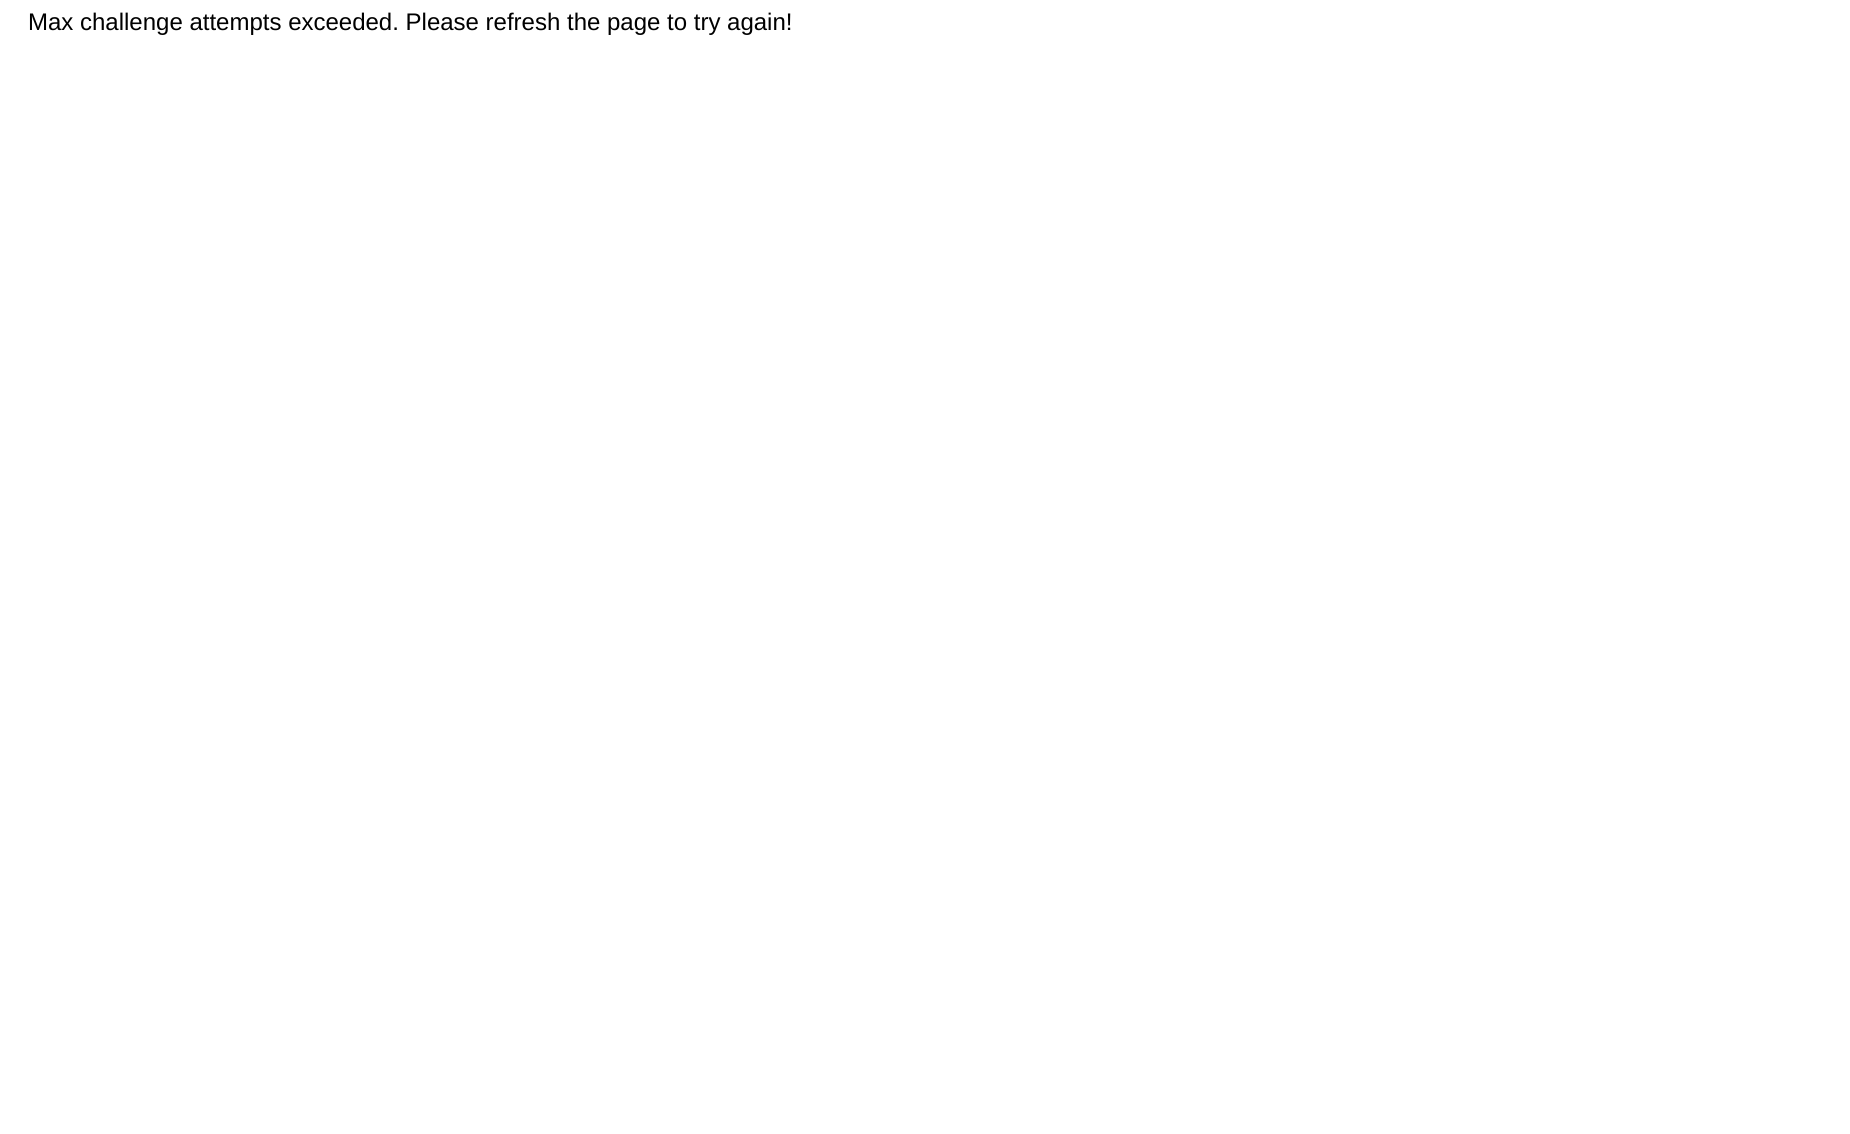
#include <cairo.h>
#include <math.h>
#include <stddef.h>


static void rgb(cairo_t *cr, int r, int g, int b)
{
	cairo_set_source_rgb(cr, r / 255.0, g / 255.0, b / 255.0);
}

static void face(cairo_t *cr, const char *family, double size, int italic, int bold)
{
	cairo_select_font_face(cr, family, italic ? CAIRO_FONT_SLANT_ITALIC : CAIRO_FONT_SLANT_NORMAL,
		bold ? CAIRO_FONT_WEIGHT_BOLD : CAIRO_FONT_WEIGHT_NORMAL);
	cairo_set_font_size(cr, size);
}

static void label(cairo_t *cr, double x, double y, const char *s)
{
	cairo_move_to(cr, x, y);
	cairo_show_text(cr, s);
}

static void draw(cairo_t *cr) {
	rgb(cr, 255, 255, 255);
	cairo_paint(cr);
	face(cr, "Liberation Sans", 24, 0, 0);
	rgb(cr, 0, 0, 0);
	label(cr, 28, 30, "Max challenge attempts exceeded. Please refresh the page to try again!");
}

int main(void) {
	cairo_surface_t *surface = cairo_image_surface_create(CAIRO_FORMAT_RGB24, 1850, 1134);
	cairo_t *cr = cairo_create(surface);
	cairo_font_options_t *options = cairo_font_options_create();
	cairo_font_options_set_hint_metrics(options, CAIRO_HINT_METRICS_OFF);
	cairo_font_options_set_hint_style(options, CAIRO_HINT_STYLE_NONE);
	cairo_set_font_options(cr, options);
	cairo_set_miter_limit(cr, 4);
	draw(cr);
	cairo_surface_write_to_png(surface, "render.png");
	cairo_font_options_destroy(options);
	cairo_destroy(cr);
	cairo_surface_destroy(surface);
	return 0;
}
